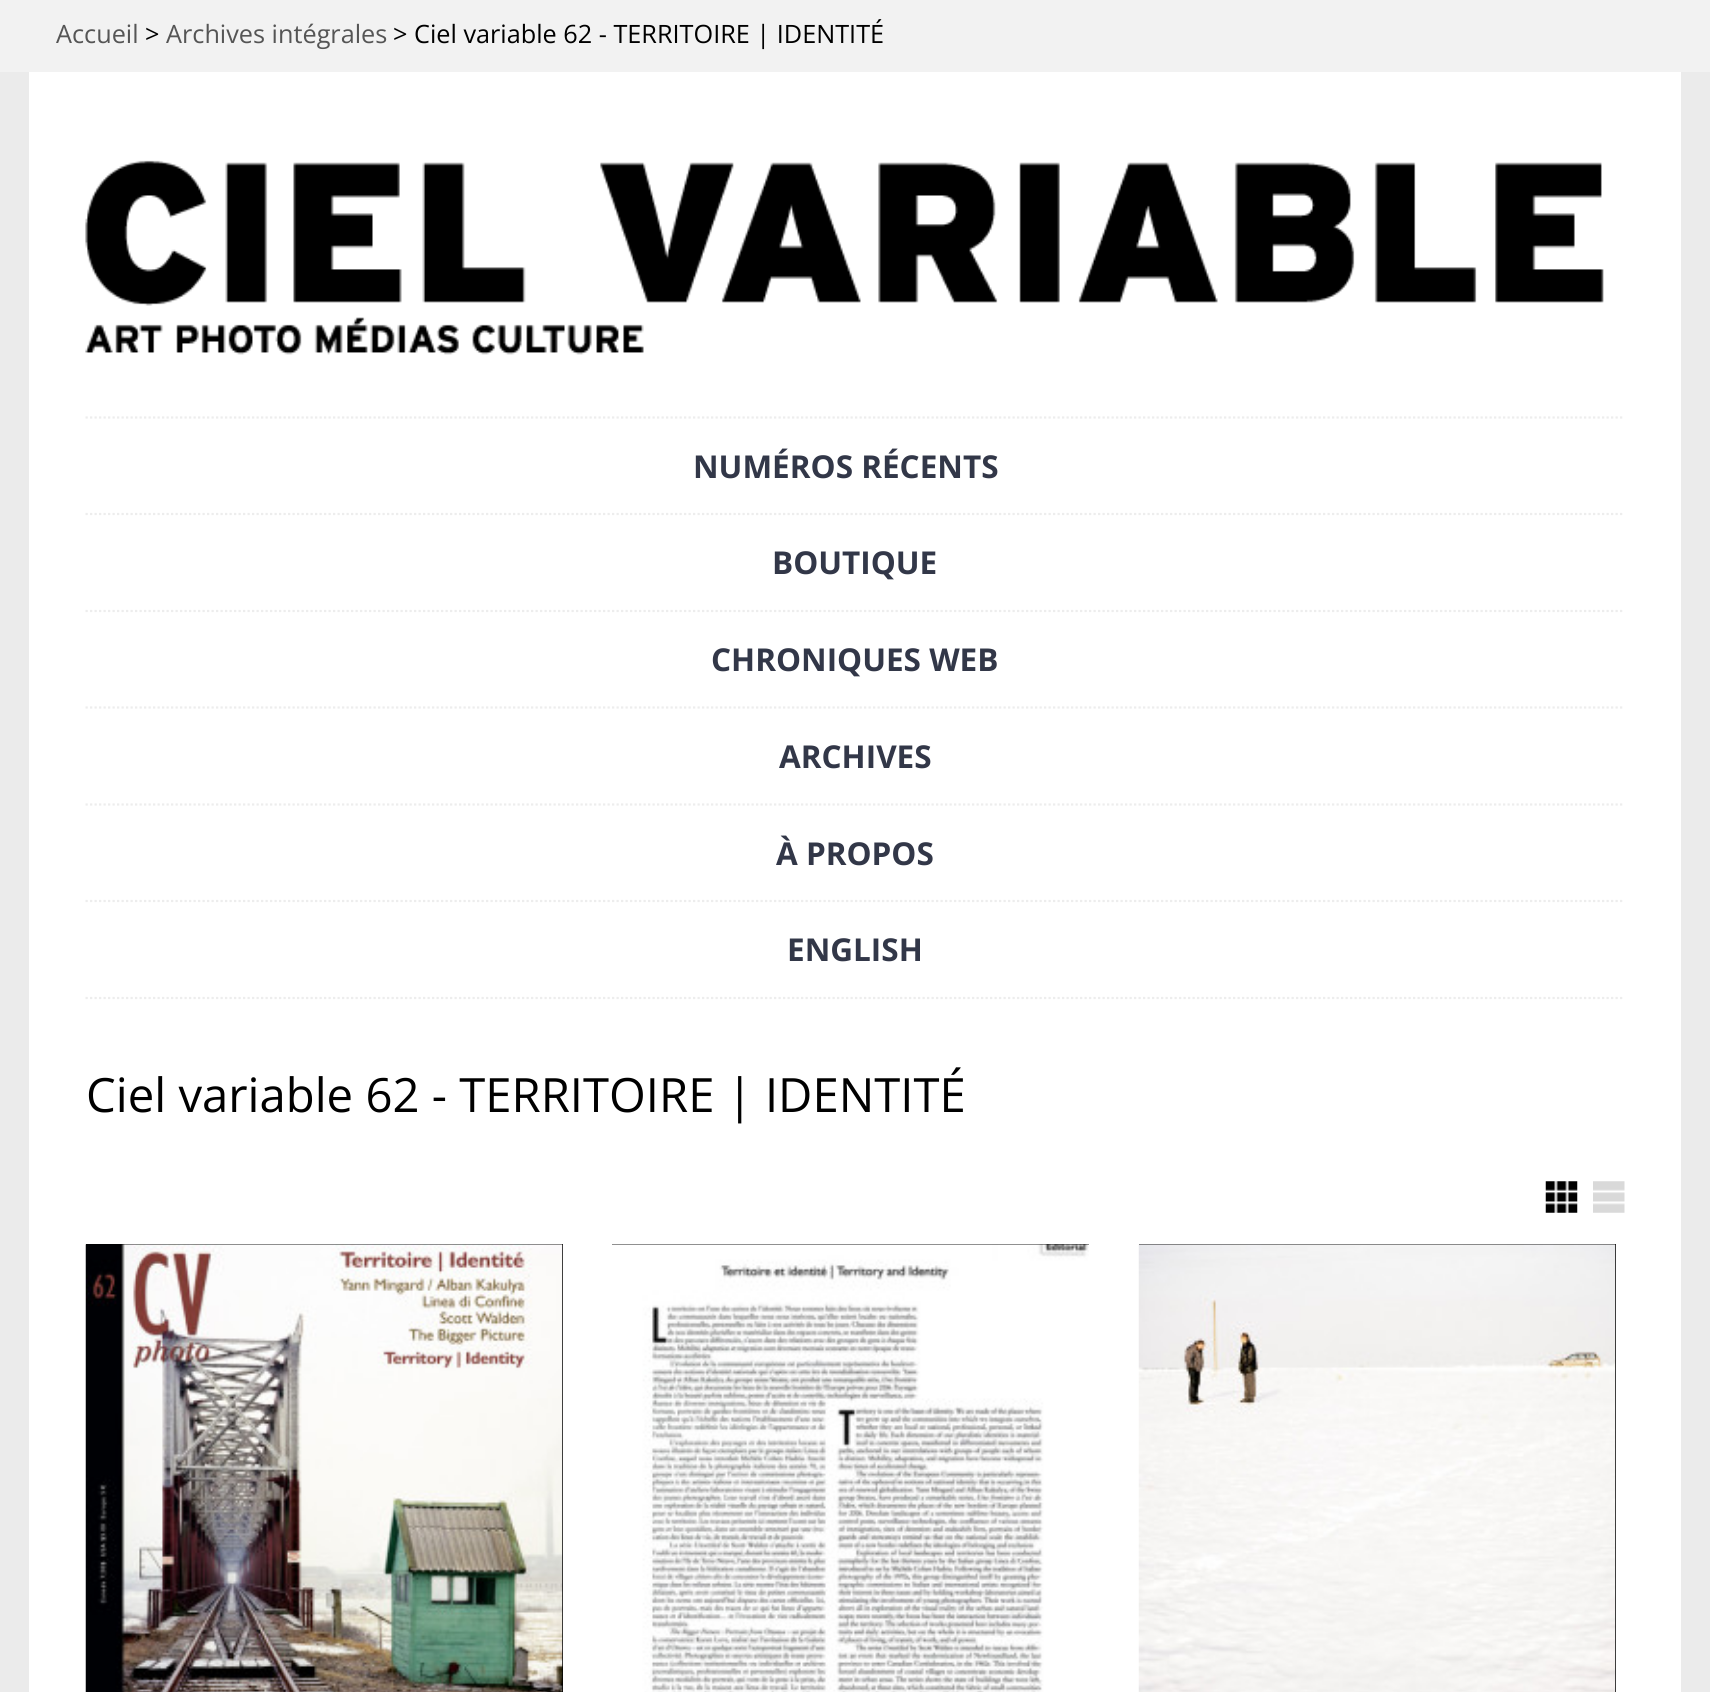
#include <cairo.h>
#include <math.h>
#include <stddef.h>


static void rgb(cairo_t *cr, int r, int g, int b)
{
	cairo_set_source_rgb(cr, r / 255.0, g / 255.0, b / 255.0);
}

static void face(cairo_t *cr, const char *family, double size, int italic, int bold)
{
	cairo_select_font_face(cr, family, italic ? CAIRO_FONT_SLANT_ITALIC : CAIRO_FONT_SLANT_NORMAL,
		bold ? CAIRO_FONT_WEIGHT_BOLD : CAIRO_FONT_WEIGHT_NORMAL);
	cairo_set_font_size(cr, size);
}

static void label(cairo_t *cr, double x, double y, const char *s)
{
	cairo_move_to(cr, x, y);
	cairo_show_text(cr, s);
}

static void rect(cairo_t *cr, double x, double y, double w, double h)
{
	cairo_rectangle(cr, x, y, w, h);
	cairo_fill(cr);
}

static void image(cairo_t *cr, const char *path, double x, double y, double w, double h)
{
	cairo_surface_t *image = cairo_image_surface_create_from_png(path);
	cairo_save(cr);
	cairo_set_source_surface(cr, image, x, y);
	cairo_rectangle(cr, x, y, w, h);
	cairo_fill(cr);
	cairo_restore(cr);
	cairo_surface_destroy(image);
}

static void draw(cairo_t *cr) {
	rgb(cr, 235, 235, 235);
	cairo_paint(cr);
	rgb(cr, 242, 242, 242);
	rect(cr, 0, 0, 1710, 72);
	face(cr, "Open Sans", 25.25, 0, 0);
	rgb(cr, 85, 85, 85);
	label(cr, 56, 43, "Accueil");
	rgb(cr, 0, 0, 0);
	label(cr, 145, 43, ">");
	rgb(cr, 85, 85, 85);
	label(cr, 166, 43, "Archives intégrales");
	rgb(cr, 0, 0, 0);
	label(cr, 393, 43, "> Ciel variable 62 - TERRITOIRE | IDENTITÉ");
	rgb(cr, 255, 255, 255);
	rect(cr, 29, 72, 1652, 1620);
	image(cr, "image0.png", 85, 160, 1519, 195);
	cairo_new_path(cr);
	cairo_move_to(cr, 85.5, 417.5);
	cairo_line_to(cr, 1624.5, 417.5);
	rgb(cr, 237, 237, 237);
	cairo_set_line_width(cr, 2.2);
	cairo_set_dash(cr, (double[]){2.25, 2.25}, 2, 0);
	cairo_stroke(cr);
	cairo_new_path(cr);
	cairo_move_to(cr, 85.5, 514);
	cairo_line_to(cr, 1624.5, 514);
	cairo_stroke(cr);
	face(cr, "Open Sans", 31.5, 0, 1);
	rgb(cr, 50, 55, 72);
	label(cr, 693, 478, "NUMÉROS RÉCENTS");
	cairo_new_path(cr);
	cairo_move_to(cr, 85.5, 611);
	cairo_line_to(cr, 1624.5, 611);
	rgb(cr, 237, 237, 237);
	cairo_stroke(cr);
	rgb(cr, 50, 55, 72);
	label(cr, 772, 574, "BOUTIQUE");
	cairo_new_path(cr);
	cairo_move_to(cr, 85.5, 707.5);
	cairo_line_to(cr, 1624.5, 707.5);
	rgb(cr, 237, 237, 237);
	cairo_stroke(cr);
	rgb(cr, 50, 55, 72);
	label(cr, 711, 671, "CHRONIQUES WEB");
	cairo_new_path(cr);
	cairo_move_to(cr, 85.5, 804.5);
	cairo_line_to(cr, 1624.5, 804.5);
	rgb(cr, 237, 237, 237);
	cairo_stroke(cr);
	rgb(cr, 50, 55, 72);
	label(cr, 779, 768, "ARCHIVES");
	cairo_new_path(cr);
	cairo_move_to(cr, 85.5, 901);
	cairo_line_to(cr, 1624.5, 901);
	rgb(cr, 237, 237, 237);
	cairo_stroke(cr);
	rgb(cr, 50, 55, 72);
	label(cr, 776, 865, "À PROPOS");
	cairo_new_path(cr);
	cairo_move_to(cr, 85.5, 998);
	cairo_line_to(cr, 1624.5, 998);
	rgb(cr, 237, 237, 237);
	cairo_stroke(cr);
	rgb(cr, 50, 55, 72);
	label(cr, 787, 961, "ENGLISH");
	face(cr, "Open Sans", 47.25, 0, 0);
	rgb(cr, 0, 0, 0);
	label(cr, 86, 1112, "Ciel variable 62 - TERRITOIRE | IDENTITÉ");
	image(cr, "image1.png", 1545, 1181, 33, 32);
	image(cr, "image2.png", 1593, 1181, 32, 32);
	rect(cr, 86, 1244, 477, 448);
	image(cr, "image3.png", 85, 1244, 478, 448);
	rect(cr, 612, 1244, 477, 1);
	image(cr, "image4.png", 612, 1244, 477, 448);
	rect(cr, 1139, 1244, 477, 448);
	image(cr, "image5.png", 1138, 1244, 478, 448);
}

int main(void) {
	cairo_surface_t *surface = cairo_image_surface_create(CAIRO_FORMAT_RGB24, 1710, 1692);
	cairo_t *cr = cairo_create(surface);
	cairo_font_options_t *options = cairo_font_options_create();
	cairo_font_options_set_hint_metrics(options, CAIRO_HINT_METRICS_OFF);
	cairo_font_options_set_hint_style(options, CAIRO_HINT_STYLE_NONE);
	cairo_set_font_options(cr, options);
	cairo_set_miter_limit(cr, 4);
	draw(cr);
	cairo_surface_write_to_png(surface, "render.png");
	cairo_font_options_destroy(options);
	cairo_destroy(cr);
	cairo_surface_destroy(surface);
	return 0;
}
